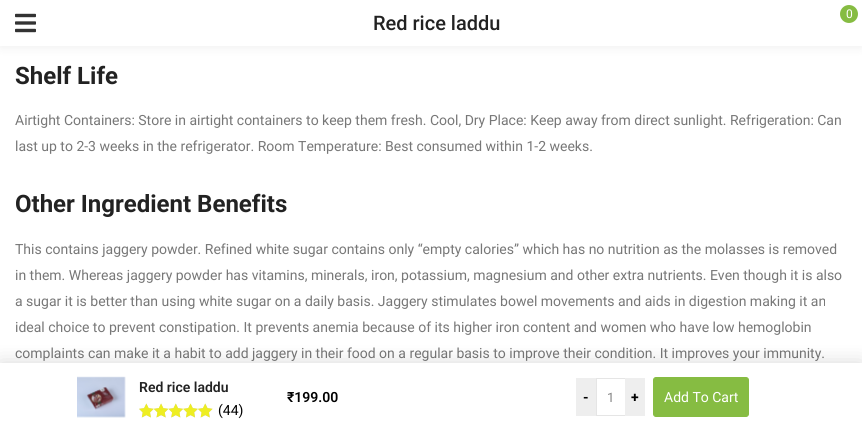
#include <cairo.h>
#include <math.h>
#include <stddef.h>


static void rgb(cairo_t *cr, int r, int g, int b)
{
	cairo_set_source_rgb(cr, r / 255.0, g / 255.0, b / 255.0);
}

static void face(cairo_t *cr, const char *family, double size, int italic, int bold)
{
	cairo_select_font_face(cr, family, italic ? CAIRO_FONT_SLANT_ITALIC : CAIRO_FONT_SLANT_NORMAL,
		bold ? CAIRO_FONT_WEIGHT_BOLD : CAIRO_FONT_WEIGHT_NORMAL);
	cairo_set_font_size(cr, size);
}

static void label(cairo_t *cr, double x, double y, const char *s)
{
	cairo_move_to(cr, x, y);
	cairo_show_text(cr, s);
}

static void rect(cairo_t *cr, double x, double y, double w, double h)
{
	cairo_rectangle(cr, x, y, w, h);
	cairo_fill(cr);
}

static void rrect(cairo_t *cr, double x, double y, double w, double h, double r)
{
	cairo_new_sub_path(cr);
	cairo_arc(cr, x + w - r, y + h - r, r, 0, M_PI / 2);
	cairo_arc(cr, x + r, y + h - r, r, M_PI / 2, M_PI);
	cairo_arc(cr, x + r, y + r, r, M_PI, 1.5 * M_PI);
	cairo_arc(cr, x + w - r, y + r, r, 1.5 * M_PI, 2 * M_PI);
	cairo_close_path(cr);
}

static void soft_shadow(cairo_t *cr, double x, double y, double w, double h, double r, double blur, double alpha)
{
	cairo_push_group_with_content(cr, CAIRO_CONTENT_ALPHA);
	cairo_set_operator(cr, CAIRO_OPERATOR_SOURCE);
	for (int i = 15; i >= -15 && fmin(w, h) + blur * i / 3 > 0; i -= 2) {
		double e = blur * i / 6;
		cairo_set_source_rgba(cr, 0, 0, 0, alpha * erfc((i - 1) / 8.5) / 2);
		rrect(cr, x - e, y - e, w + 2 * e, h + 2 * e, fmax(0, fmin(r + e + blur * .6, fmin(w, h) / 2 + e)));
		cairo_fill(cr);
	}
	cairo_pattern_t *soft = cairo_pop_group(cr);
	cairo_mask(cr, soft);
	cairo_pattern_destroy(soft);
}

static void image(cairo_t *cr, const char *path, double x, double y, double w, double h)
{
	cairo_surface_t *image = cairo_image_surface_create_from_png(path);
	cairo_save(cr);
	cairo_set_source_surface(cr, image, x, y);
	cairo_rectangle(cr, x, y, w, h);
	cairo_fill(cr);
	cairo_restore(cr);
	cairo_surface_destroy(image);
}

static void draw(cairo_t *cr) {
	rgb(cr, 255, 255, 255);
	cairo_paint(cr);
	rgb(cr, 0, 0, 0);
	soft_shadow(cr, 0, 2, 862, 46, 0, 5, 0.06);
	rgb(cr, 255, 255, 255);
	rect(cr, 0, 0, 862, 46);
	image(cr, "image0.png", 15, 13, 21, 20);
	face(cr, "Roboto Medium", 20, 0, 0);
	rgb(cr, 34, 34, 34);
	label(cr, 373, 30, "Red rice laddu");
	rgb(cr, 134, 188, 66);
	cairo_new_path(cr);
	cairo_arc(cr, 849, 14, 9, 0, 2 * M_PI);
	cairo_fill(cr);
	face(cr, "Roboto", 12, 0, 0);
	rgb(cr, 255, 255, 255);
	label(cr, 846, 18, "0");
	face(cr, "Roboto", 24, 0, 1);
	rgb(cr, 34, 34, 34);
	label(cr, 15, 84, "Shelf Life");
	face(cr, "Roboto", 14, 0, 0);
	rgb(cr, 119, 119, 119);
	label(cr, 15, 125, "Airtight Containers: Store in airtight containers to keep them fresh. Cool, Dry Place: Keep away from direct sunlight. Refrigeration: Can");
	label(cr, 15, 151, "last up to 2-3 weeks in the refrigerator. Room Temperature: Best consumed within 1-2 weeks.");
	face(cr, "Roboto", 24, 0, 1);
	rgb(cr, 34, 34, 34);
	label(cr, 15, 212, "Other Ingredient Benefits");
	face(cr, "Roboto", 14, 0, 0);
	rgb(cr, 119, 119, 119);
	label(cr, 15, 254, "This contains jaggery powder. Refined white sugar contains only “empty calories” which has no nutrition as the molasses is removed");
	label(cr, 15, 280, "in them. Whereas jaggery powder has vitamins, minerals, iron, potassium, magnesium and other extra nutrients. Even though it is also");
	label(cr, 15, 306, "a sugar it is better than using white sugar on a daily basis. Jaggery stimulates bowel movements and aids in digestion making it an");
	label(cr, 15, 332, "ideal choice to prevent constipation. It prevents anemia because of its higher iron content and women who have low hemoglobin");
	label(cr, 15, 358, "complaints can make it a habit to add jaggery in their food on a regular basis to improve their condition. It improves your immunity.");
	rgb(cr, 0, 0, 0);
	soft_shadow(cr, 0, 363, 862, 68, 0, 10, 0.15);
	rgb(cr, 255, 255, 255);
	rect(cr, 0, 363, 862, 68);
	image(cr, "image1.png", 77, 376, 49, 42);
	face(cr, "Roboto SemiBold", 14, 0, 0);
	rgb(cr, 34, 34, 34);
	label(cr, 139, 392, "Red rice laddu");
	image(cr, "image2.png", 139, 403, 74, 15);
	image(cr, "image3.png", 139, 403, 74, 15);
	face(cr, "Roboto", 14, 0, 0);
	rgb(cr, 0, 0, 0);
	label(cr, 218, 415, "(44)");
	face(cr, "Roboto SemiBold", 14, 0, 0);
	label(cr, 287, 402, "₹199.00");
	rgb(cr, 238, 238, 238);
	rect(cr, 576, 378, 20, 38);
	face(cr, "Roboto", 14, 0, 1);
	rgb(cr, 0, 0, 0);
	label(cr, 583, 402, "-");
	cairo_rectangle(cr, 596.5, 378.5, 29, 37);
	rgb(cr, 229, 229, 229);
	cairo_set_line_width(cr, 1);
	cairo_stroke(cr);
	face(cr, "Roboto", 13, 0, 0);
	rgb(cr, 133, 133, 133);
	label(cr, 607, 402, "1");
	rgb(cr, 238, 238, 238);
	rect(cr, 625, 378, 20, 38);
	face(cr, "Roboto", 14, 0, 1);
	rgb(cr, 0, 0, 0);
	label(cr, 631, 402, "+");
	rgb(cr, 134, 188, 66);
	rrect(cr, 653.5, 377.5, 95, 39, 2.5);
	cairo_fill_preserve(cr);
	cairo_stroke(cr);
	face(cr, "Roboto", 14, 0, 0);
	rgb(cr, 255, 255, 255);
	label(cr, 664, 402, "Add To Cart");
}

int main(void) {
	cairo_surface_t *surface = cairo_image_surface_create(CAIRO_FORMAT_RGB24, 862, 431);
	cairo_t *cr = cairo_create(surface);
	cairo_font_options_t *options = cairo_font_options_create();
	cairo_font_options_set_hint_metrics(options, CAIRO_HINT_METRICS_OFF);
	cairo_font_options_set_hint_style(options, CAIRO_HINT_STYLE_NONE);
	cairo_set_font_options(cr, options);
	cairo_set_miter_limit(cr, 4);
	draw(cr);
	cairo_surface_write_to_png(surface, "render.png");
	cairo_font_options_destroy(options);
	cairo_destroy(cr);
	cairo_surface_destroy(surface);
	return 0;
}
